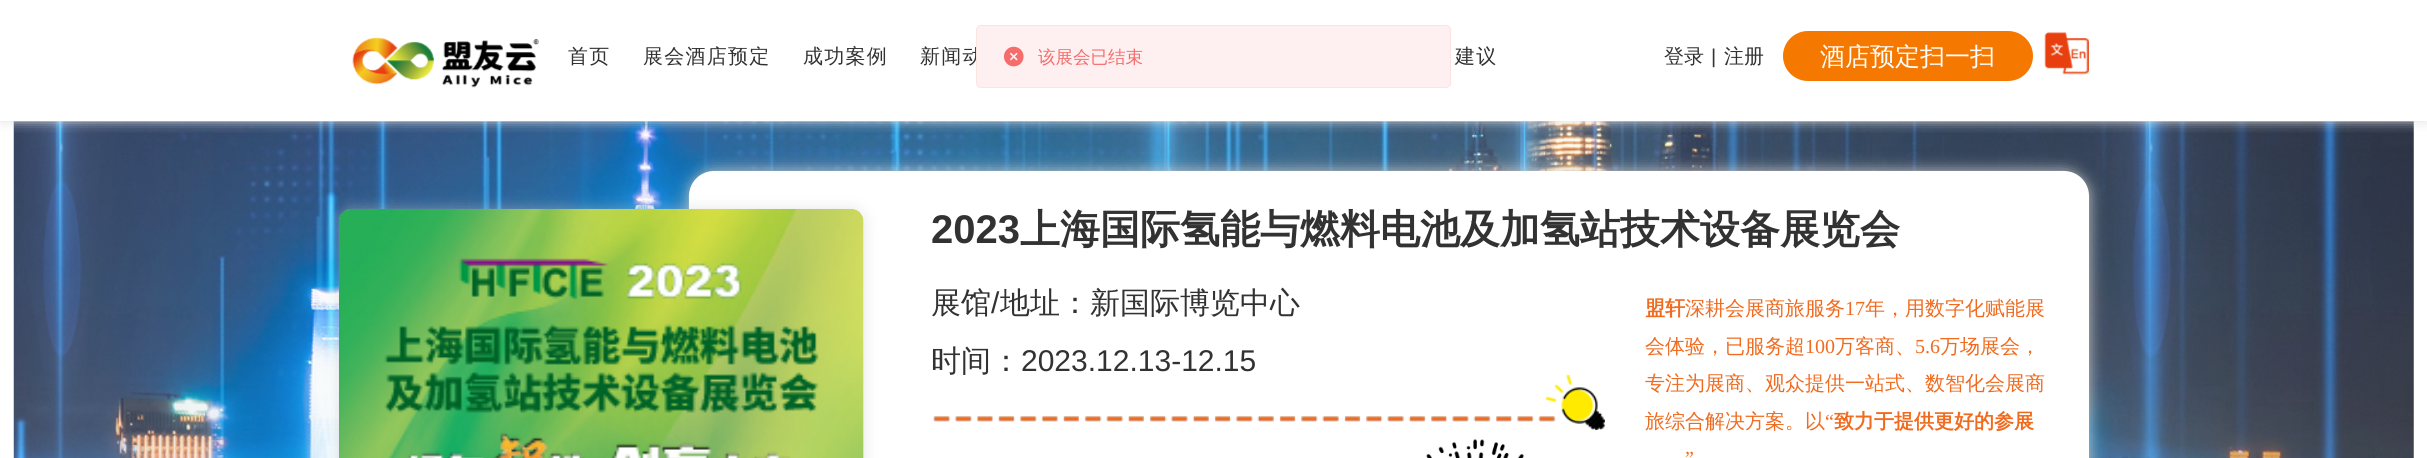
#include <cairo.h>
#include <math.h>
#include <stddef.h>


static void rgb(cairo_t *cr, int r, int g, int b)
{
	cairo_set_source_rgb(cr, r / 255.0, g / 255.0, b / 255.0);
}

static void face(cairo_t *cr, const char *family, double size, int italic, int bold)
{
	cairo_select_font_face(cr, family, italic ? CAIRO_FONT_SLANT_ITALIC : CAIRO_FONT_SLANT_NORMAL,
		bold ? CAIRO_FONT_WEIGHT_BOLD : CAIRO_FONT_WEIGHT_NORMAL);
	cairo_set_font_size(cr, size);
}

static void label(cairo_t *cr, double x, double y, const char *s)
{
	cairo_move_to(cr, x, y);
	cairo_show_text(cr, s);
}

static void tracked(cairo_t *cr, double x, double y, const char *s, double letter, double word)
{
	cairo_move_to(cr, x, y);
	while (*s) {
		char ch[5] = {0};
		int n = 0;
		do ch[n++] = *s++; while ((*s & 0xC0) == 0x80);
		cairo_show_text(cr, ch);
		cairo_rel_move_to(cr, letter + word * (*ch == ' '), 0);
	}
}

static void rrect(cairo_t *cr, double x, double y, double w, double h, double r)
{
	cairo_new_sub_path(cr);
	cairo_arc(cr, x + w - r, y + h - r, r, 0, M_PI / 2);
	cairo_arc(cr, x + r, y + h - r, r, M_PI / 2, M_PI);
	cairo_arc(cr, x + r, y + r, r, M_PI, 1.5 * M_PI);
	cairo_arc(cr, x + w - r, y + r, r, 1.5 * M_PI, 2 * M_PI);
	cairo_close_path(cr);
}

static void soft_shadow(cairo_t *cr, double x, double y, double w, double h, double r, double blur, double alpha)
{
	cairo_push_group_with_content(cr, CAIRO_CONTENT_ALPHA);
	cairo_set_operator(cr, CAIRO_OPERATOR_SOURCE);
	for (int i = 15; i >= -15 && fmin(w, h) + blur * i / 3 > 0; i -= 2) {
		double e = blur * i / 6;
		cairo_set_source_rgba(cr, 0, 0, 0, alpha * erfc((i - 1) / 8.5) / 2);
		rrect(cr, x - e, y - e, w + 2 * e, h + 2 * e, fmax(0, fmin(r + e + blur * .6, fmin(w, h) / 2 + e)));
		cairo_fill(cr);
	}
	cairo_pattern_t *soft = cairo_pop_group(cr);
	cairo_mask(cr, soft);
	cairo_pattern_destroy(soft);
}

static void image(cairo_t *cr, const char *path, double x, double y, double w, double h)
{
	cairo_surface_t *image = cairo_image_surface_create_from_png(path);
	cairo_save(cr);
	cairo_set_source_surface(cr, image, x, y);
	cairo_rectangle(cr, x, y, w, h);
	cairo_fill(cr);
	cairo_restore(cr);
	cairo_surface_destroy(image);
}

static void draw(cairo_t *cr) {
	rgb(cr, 255, 255, 255);
	cairo_paint(cr);
	image(cr, "image2.png", 13, 121, 2401, 337);
	cairo_save(cr);
	cairo_rectangle(cr, 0, 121, 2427, 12);
	cairo_clip(cr);
	rgb(cr, 224, 224, 224);
	soft_shadow(cr, 0, 0, 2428, 121, 0, 6, 1);
	cairo_restore(cr);
	image(cr, "image0.png", 352, 37, 187, 51);
	face(cr, "WenQuanYi Zen Hei Medium", 20, 0, 0);
	rgb(cr, 50, 50, 50);
	tracked(cr, 568, 63, "首页", 1.25, 0);
	tracked(cr, 643, 63, "展会酒店预定", 1.25, 0);
	tracked(cr, 803, 63, "成功案例", 1.25, 0);
	tracked(cr, 920, 63, "新闻动", 1.25, 0);
	tracked(cr, 1455, 63, "建议", 1.25, 0);
	label(cr, 1664, 63, "登录");
	face(cr, "Liberation Sans", 20, 0, 0);
	label(cr, 1711, 63, "|");
	face(cr, "WenQuanYi Zen Hei Medium", 20, 0, 0);
	label(cr, 1724, 63, "注册");
	rgb(cr, 245, 120, 0);
	rrect(cr, 1783, 31, 250, 50, 25);
	cairo_fill(cr);
	face(cr, "WenQuanYi Zen Hei Medium", 25, 0, 0);
	rgb(cr, 255, 255, 255);
	label(cr, 1820, 65, "酒店预定扫一扫");
	image(cr, "image1.png", 2044, 32, 45, 43);
	rgb(cr, 204, 204, 204);
	soft_shadow(cr, 689, 171, 1400, 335, 25, 7.5, 1);
	rgb(cr, 255, 255, 255);
	rrect(cr, 689, 171, 1400, 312, 25);
	cairo_fill(cr);
	rgb(cr, 204, 204, 204);
	soft_shadow(cr, 339, 209, 525, 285, 13, 7.5, 0.5);
	rgb(cr, 255, 255, 255);
	rrect(cr, 339, 209, 525, 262, 13);
	cairo_fill(cr);
	image(cr, "image3.png", 339, 209, 525, 249);
	face(cr, "Liberation Sans", 40, 0, 1);
	rgb(cr, 50, 50, 50);
	label(cr, 931, 243, "2023");
	face(cr, "WenQuanYi Zen Hei", 40, 0, 1);
	label(cr, 1020, 243, "上海国际氢能与燃料电池及加氢站技术设备展览会");
	face(cr, "WenQuanYi Zen Hei Medium", 30, 0, 0);
	label(cr, 931, 313, "展馆");
	face(cr, "Liberation Sans", 30, 0, 0);
	label(cr, 991, 313, "/");
	face(cr, "WenQuanYi Zen Hei Medium", 30, 0, 0);
	label(cr, 1000, 313, "地址：新国际博览中心");
	label(cr, 931, 371, "时间：");
	face(cr, "Liberation Sans", 30, 0, 0);
	label(cr, 1021, 371, "2023.12.13-12.15");
	image(cr, "image4.png", 933, 375, 672, 55);
	image(cr, "image5.png", 1426, 439, 98, 19);
	face(cr, "WenQuanYi Zen Hei", 20, 0, 1);
	rgb(cr, 240, 107, 31);
	label(cr, 1645, 315, "盟轩");
	face(cr, "WenQuanYi Zen Hei Medium", 20, 0, 0);
	label(cr, 1685, 315, "深耕会展商旅服务");
	face(cr, "Liberation Serif", 20, 0, 0);
	label(cr, 1845, 315, "17");
	face(cr, "WenQuanYi Zen Hei Medium", 20, 0, 0);
	label(cr, 1865, 315, "年，用数字化赋能展");
	label(cr, 1645, 353, "会体验，已服务超");
	face(cr, "Liberation Serif", 20, 0, 0);
	label(cr, 1805, 353, "100");
	face(cr, "WenQuanYi Zen Hei Medium", 20, 0, 0);
	label(cr, 1835, 353, "万客商、");
	face(cr, "Liberation Serif", 20, 0, 0);
	label(cr, 1915, 353, "5.6");
	face(cr, "WenQuanYi Zen Hei Medium", 20, 0, 0);
	label(cr, 1940, 353, "万场展会，");
	label(cr, 1645, 390, "专注为展商、观众提供一站式、数智化会展商");
	label(cr, 1645, 428, "旅综合解决方案。以");
	face(cr, "Liberation Serif", 20, 0, 0);
	label(cr, 1825, 428, "“");
	face(cr, "WenQuanYi Zen Hei", 20, 0, 1);
	label(cr, 1834, 428, "致力于提供更好的参展");
	face(cr, "Liberation Serif", 20, 0, 0);
	label(cr, 1685, 465, "”");
	rgb(cr, 254, 240, 240);
	rrect(cr, 976.5, 25.5, 474, 62, 4.5);
	cairo_fill_preserve(cr);
	rgb(cr, 253, 226, 226);
	cairo_set_line_width(cr, 1);
	cairo_stroke(cr);
	image(cr, "image6.png", 1003, 46, 21, 21);
	face(cr, "WenQuanYi Zen Hei Medium", 17.5, 0, 0);
	rgb(cr, 245, 108, 108);
	label(cr, 1038, 63, "该展会已结束");
}

int main(void) {
	cairo_surface_t *surface = cairo_image_surface_create(CAIRO_FORMAT_RGB24, 2427, 458);
	cairo_t *cr = cairo_create(surface);
	cairo_font_options_t *options = cairo_font_options_create();
	cairo_font_options_set_hint_metrics(options, CAIRO_HINT_METRICS_OFF);
	cairo_font_options_set_hint_style(options, CAIRO_HINT_STYLE_NONE);
	cairo_set_font_options(cr, options);
	cairo_set_miter_limit(cr, 4);
	draw(cr);
	cairo_surface_write_to_png(surface, "render.png");
	cairo_font_options_destroy(options);
	cairo_destroy(cr);
	cairo_surface_destroy(surface);
	return 0;
}
